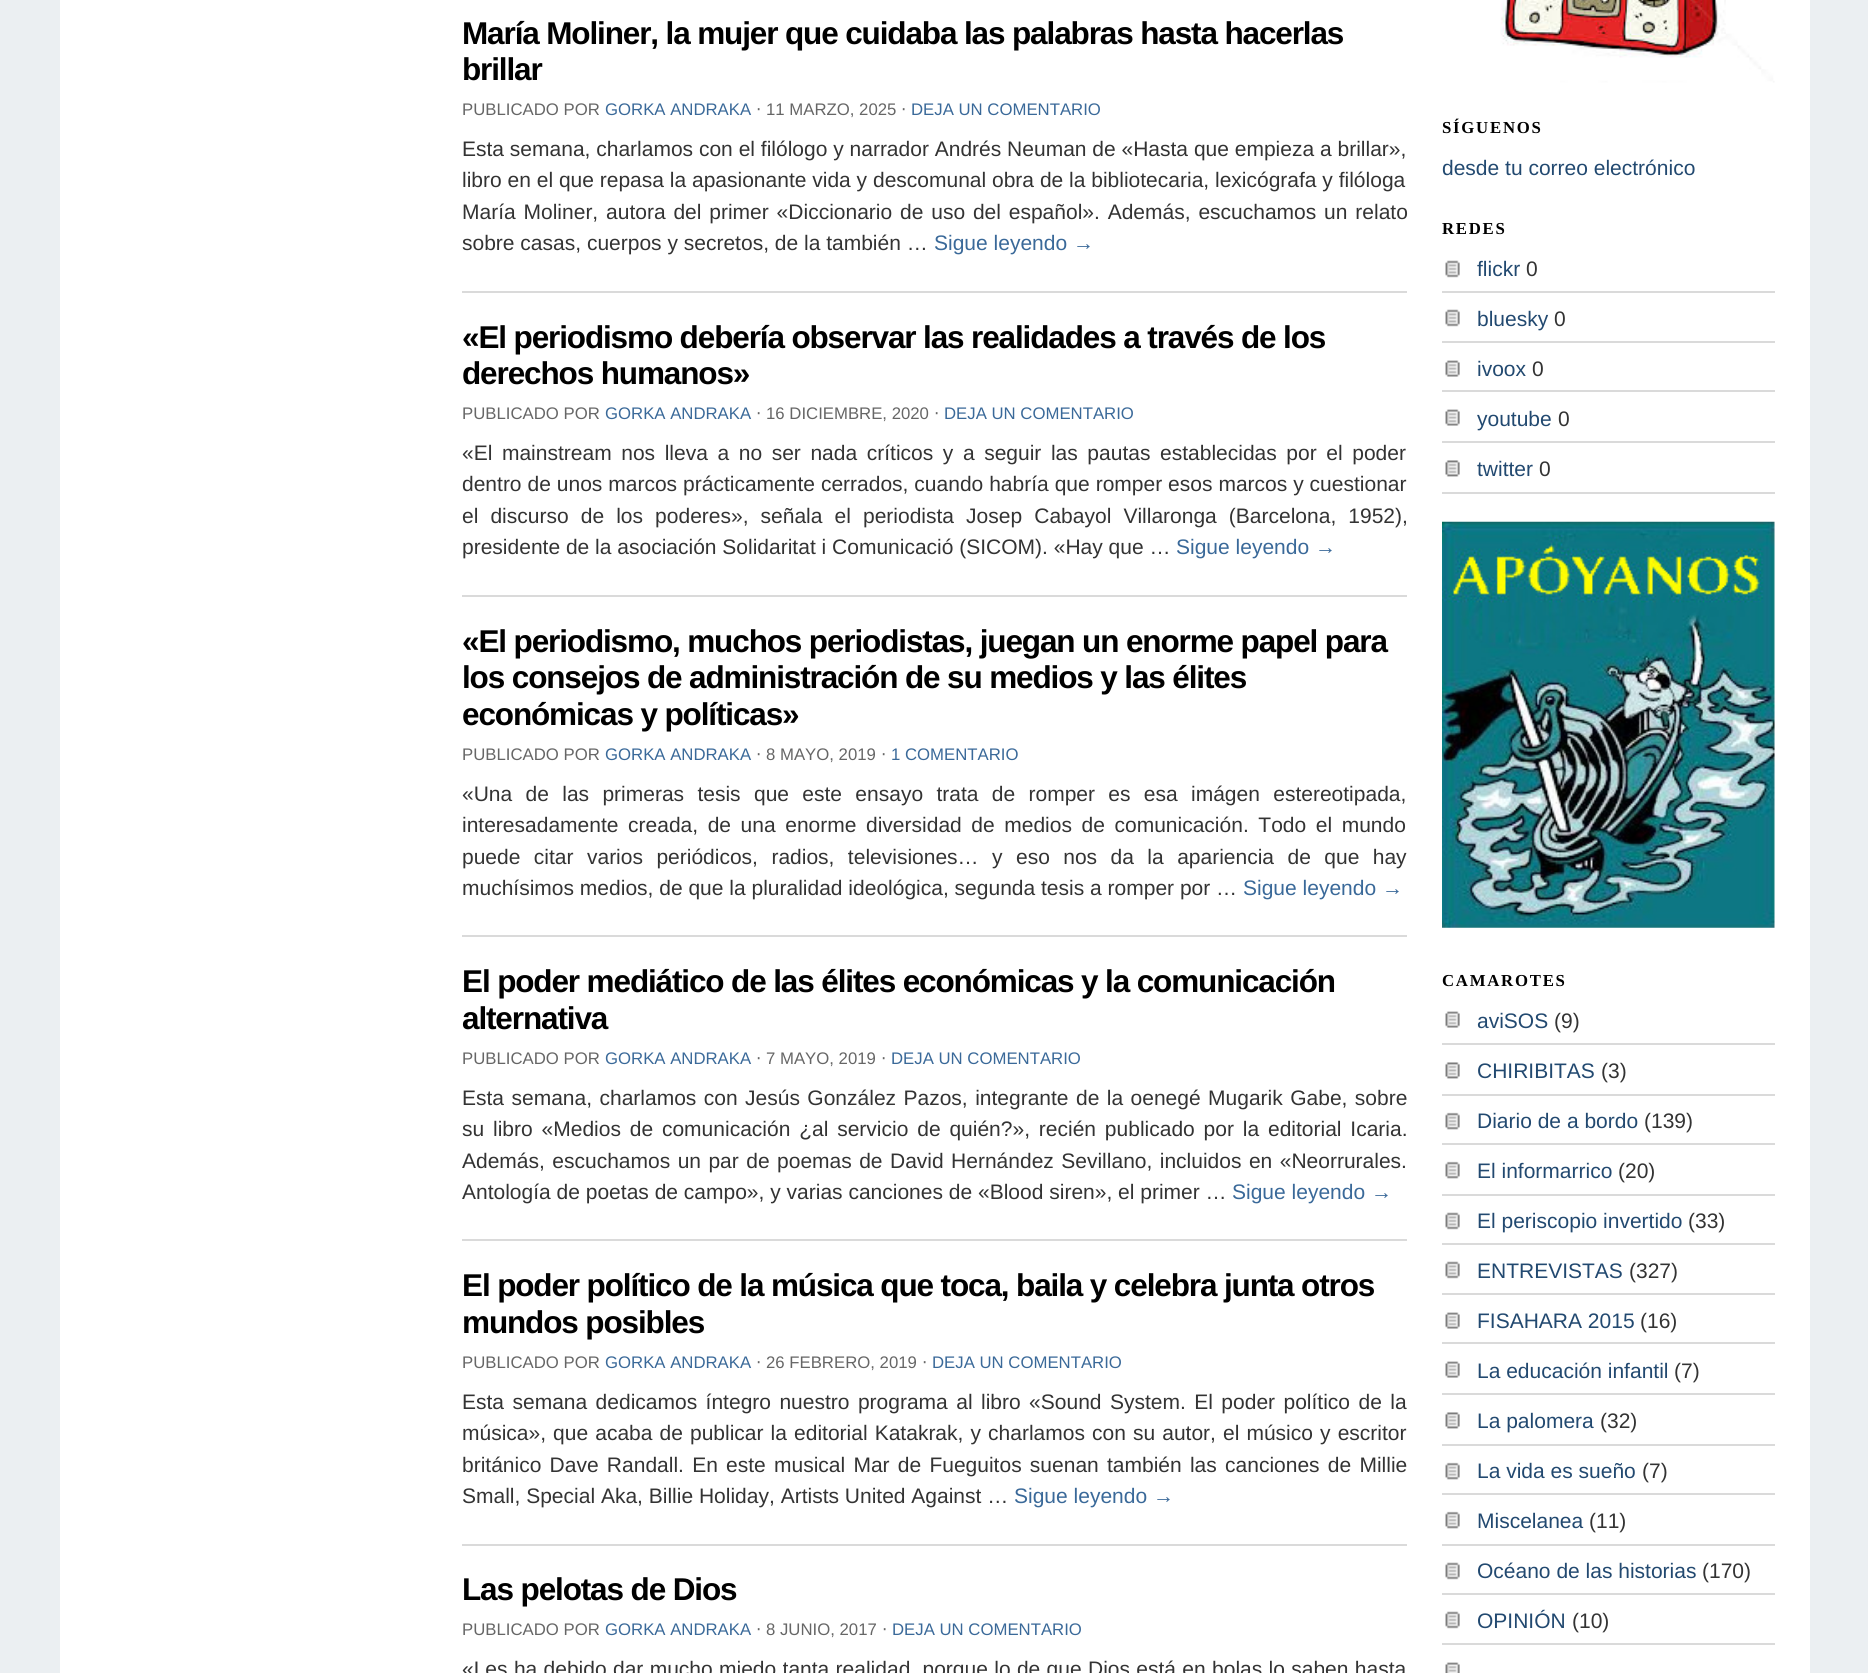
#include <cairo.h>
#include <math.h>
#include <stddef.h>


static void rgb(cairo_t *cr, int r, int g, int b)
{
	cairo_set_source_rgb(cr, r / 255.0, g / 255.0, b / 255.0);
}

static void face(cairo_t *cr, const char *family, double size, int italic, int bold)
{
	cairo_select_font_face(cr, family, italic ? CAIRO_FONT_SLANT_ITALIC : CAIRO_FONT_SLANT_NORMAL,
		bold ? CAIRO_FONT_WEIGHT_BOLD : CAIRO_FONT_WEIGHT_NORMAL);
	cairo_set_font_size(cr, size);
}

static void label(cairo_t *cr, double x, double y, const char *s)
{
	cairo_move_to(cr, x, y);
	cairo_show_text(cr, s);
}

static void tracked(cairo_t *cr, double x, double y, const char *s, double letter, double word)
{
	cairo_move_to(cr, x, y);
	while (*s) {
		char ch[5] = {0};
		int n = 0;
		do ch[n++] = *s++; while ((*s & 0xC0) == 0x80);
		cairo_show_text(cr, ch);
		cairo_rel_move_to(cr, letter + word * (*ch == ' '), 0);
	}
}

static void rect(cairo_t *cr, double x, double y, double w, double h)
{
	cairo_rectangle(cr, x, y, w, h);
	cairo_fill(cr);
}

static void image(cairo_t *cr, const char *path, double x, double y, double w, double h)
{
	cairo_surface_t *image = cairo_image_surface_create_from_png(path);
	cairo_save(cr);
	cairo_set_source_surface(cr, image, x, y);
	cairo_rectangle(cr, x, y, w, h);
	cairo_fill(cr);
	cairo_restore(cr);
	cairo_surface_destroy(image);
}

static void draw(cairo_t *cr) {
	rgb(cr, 235, 239, 242);
	cairo_paint(cr);
	rgb(cr, 255, 255, 255);
	rect(cr, 60, 0, 1750, 1673);
	rgb(cr, 218, 218, 218);
	rect(cr, 462, 291, 945, 2);
	face(cr, "Liberation Sans", 31.5, 0, 1);
	rgb(cr, 0, 0, 0);
	tracked(cr, 462, 44, "María Moliner, la mujer que cuidaba las palabras hasta hacerlas", -1.13, 0);
	tracked(cr, 462, 80, "brillar", -1.13, 0);
	face(cr, "Liberation Sans", 16.75, 0, 0);
	rgb(cr, 102, 102, 102);
	label(cr, 462, 115, "PUBLICADO POR");
	rgb(cr, 58, 105, 153);
	label(cr, 605, 115, "GORKA ANDRAKA");
	face(cr, "DejaVu Sans", 16.75, 0, 0);
	rgb(cr, 102, 102, 102);
	label(cr, 756, 115, "⋅");
	face(cr, "Liberation Sans", 16.75, 0, 0);
	label(cr, 766, 115, "11 MARZO, 2025");
	face(cr, "DejaVu Sans", 16.75, 0, 0);
	label(cr, 901, 115, "⋅");
	face(cr, "Liberation Sans", 16.75, 0, 0);
	rgb(cr, 58, 105, 153);
	label(cr, 911, 115, "DEJA UN COMENTARIO");
	face(cr, "Liberation Sans", 21, 0, 0);
	rgb(cr, 51, 51, 51);
	label(cr, 462, 156, "Esta semana, charlamos con el filólogo y narrador Andrés Neuman de «Hasta que empieza a brillar»,");
	label(cr, 462, 187, "libro en el que repasa la apasionante vida y descomunal obra de la bibliotecaria, lexicógrafa y filóloga");
	tracked(cr, 462, 219, "María Moliner, autora del primer «Diccionario de uso del español». Además, escuchamos un relato", 0, 2);
	label(cr, 462, 250, "sobre casas, cuerpos y secretos, de la también …");
	rgb(cr, 58, 105, 153);
	label(cr, 934, 250, "Sigue leyendo →");
	rgb(cr, 218, 218, 218);
	rect(cr, 462, 595, 945, 2);
	face(cr, "Liberation Sans", 31.5, 0, 1);
	rgb(cr, 0, 0, 0);
	tracked(cr, 462, 348, "«El periodismo debería observar las realidades a través de los", -1.13, 0);
	tracked(cr, 462, 384, "derechos humanos»", -1.13, 0);
	face(cr, "Liberation Sans", 16.75, 0, 0);
	rgb(cr, 102, 102, 102);
	label(cr, 462, 419, "PUBLICADO POR");
	rgb(cr, 58, 105, 153);
	label(cr, 605, 419, "GORKA ANDRAKA");
	face(cr, "DejaVu Sans", 16.75, 0, 0);
	rgb(cr, 102, 102, 102);
	label(cr, 756, 419, "⋅");
	face(cr, "Liberation Sans", 16.75, 0, 0);
	label(cr, 766, 419, "16 DICIEMBRE, 2020");
	face(cr, "DejaVu Sans", 16.75, 0, 0);
	label(cr, 934, 419, "⋅");
	face(cr, "Liberation Sans", 16.75, 0, 0);
	rgb(cr, 58, 105, 153);
	label(cr, 944, 419, "DEJA UN COMENTARIO");
	face(cr, "Liberation Sans", 21, 0, 0);
	rgb(cr, 51, 51, 51);
	tracked(cr, 462, 460, "«El mainstream nos lleva a no ser nada críticos y a seguir las pautas establecidas por el poder", 0, 3.75);
	tracked(cr, 462, 491, "dentro de unos marcos prácticamente cerrados, cuando habría que romper esos marcos y cuestionar", 0, 0.1);
	tracked(cr, 462, 523, "el discurso de los poderes», señala el periodista Josep Cabayol Villaronga (Barcelona, 1952),", 0, 6.25);
	label(cr, 462, 554, "presidente de la asociación Solidaritat i Comunicació (SICOM). «Hay que …");
	rgb(cr, 58, 105, 153);
	label(cr, 1176, 554, "Sigue leyendo →");
	rgb(cr, 218, 218, 218);
	rect(cr, 462, 935, 945, 2);
	face(cr, "Liberation Sans", 31.5, 0, 1);
	rgb(cr, 0, 0, 0);
	tracked(cr, 462, 652, "«El periodismo, muchos periodistas, juegan un enorme papel para", -1.13, 0);
	tracked(cr, 462, 688, "los consejos de administración de su medios y las élites", -1.13, 0);
	tracked(cr, 462, 725, "económicas y políticas»", -1.13, 0);
	face(cr, "Liberation Sans", 16.75, 0, 0);
	rgb(cr, 102, 102, 102);
	label(cr, 462, 760, "PUBLICADO POR");
	rgb(cr, 58, 105, 153);
	label(cr, 605, 760, "GORKA ANDRAKA");
	face(cr, "DejaVu Sans", 16.75, 0, 0);
	rgb(cr, 102, 102, 102);
	label(cr, 756, 760, "⋅");
	face(cr, "Liberation Sans", 16.75, 0, 0);
	label(cr, 766, 760, "8 MAYO, 2019");
	face(cr, "DejaVu Sans", 16.75, 0, 0);
	label(cr, 881, 760, "⋅");
	face(cr, "Liberation Sans", 16.75, 0, 0);
	rgb(cr, 58, 105, 153);
	label(cr, 891, 760, "1 COMENTARIO");
	face(cr, "Liberation Sans", 21, 0, 0);
	rgb(cr, 51, 51, 51);
	tracked(cr, 462, 801, "«Una de las primeras tesis que este ensayo trata de romper es esa imágen estereotipada,", 0, 7.5);
	tracked(cr, 462, 832, "interesadamente creada, de una enorme diversidad de medios de comunicación. Todo el mundo", 0, 3.75);
	tracked(cr, 462, 864, "puede citar varios periódicos, radios, televisiones… y eso nos da la apariencia de que hay", 0, 7.6);
	label(cr, 462, 895, "muchísimos medios, de que la pluralidad ideológica, segunda tesis a romper por …");
	rgb(cr, 58, 105, 153);
	label(cr, 1243, 895, "Sigue leyendo →");
	rgb(cr, 218, 218, 218);
	rect(cr, 462, 1239, 945, 2);
	face(cr, "Liberation Sans", 31.5, 0, 1);
	rgb(cr, 0, 0, 0);
	tracked(cr, 462, 992, "El poder mediático de las élites económicas y la comunicación", -1.13, 0);
	tracked(cr, 462, 1029, "alternativa", -1.13, 0);
	face(cr, "Liberation Sans", 16.75, 0, 0);
	rgb(cr, 102, 102, 102);
	label(cr, 462, 1064, "PUBLICADO POR");
	rgb(cr, 58, 105, 153);
	label(cr, 605, 1064, "GORKA ANDRAKA");
	face(cr, "DejaVu Sans", 16.75, 0, 0);
	rgb(cr, 102, 102, 102);
	label(cr, 756, 1064, "⋅");
	face(cr, "Liberation Sans", 16.75, 0, 0);
	label(cr, 766, 1064, "7 MAYO, 2019");
	face(cr, "DejaVu Sans", 16.75, 0, 0);
	label(cr, 881, 1064, "⋅");
	face(cr, "Liberation Sans", 16.75, 0, 0);
	rgb(cr, 58, 105, 153);
	label(cr, 891, 1064, "DEJA UN COMENTARIO");
	face(cr, "Liberation Sans", 21, 0, 0);
	rgb(cr, 51, 51, 51);
	tracked(cr, 462, 1105, "Esta semana, charlamos con Jesús González Pazos, integrante de la oenegé Mugarik Gabe, sobre", 0, 1.6);
	tracked(cr, 462, 1136, "su libro «Medios de comunicación ¿al servicio de quién?», recién publicado por la editorial Icaria.", 0, 3);
	tracked(cr, 462, 1168, "Además, escuchamos un par de poemas de David Hernández Sevillano, incluidos en «Neorrurales.", 0, 1.6);
	label(cr, 462, 1199, "Antología de poetas de campo», y varias canciones de «Blood siren», el primer …");
	rgb(cr, 58, 105, 153);
	label(cr, 1232, 1199, "Sigue leyendo →");
	rgb(cr, 218, 218, 218);
	rect(cr, 462, 1544, 945, 2);
	face(cr, "Liberation Sans", 31.5, 0, 1);
	rgb(cr, 0, 0, 0);
	tracked(cr, 462, 1296, "El poder político de la música que toca, baila y celebra junta otros", -1.13, 0);
	tracked(cr, 462, 1333, "mundos posibles", -1.13, 0);
	face(cr, "Liberation Sans", 16.75, 0, 0);
	rgb(cr, 102, 102, 102);
	label(cr, 462, 1368, "PUBLICADO POR");
	rgb(cr, 58, 105, 153);
	label(cr, 605, 1368, "GORKA ANDRAKA");
	face(cr, "DejaVu Sans", 16.75, 0, 0);
	rgb(cr, 102, 102, 102);
	label(cr, 756, 1368, "⋅");
	face(cr, "Liberation Sans", 16.75, 0, 0);
	label(cr, 766, 1368, "26 FEBRERO, 2019");
	face(cr, "DejaVu Sans", 16.75, 0, 0);
	label(cr, 922, 1368, "⋅");
	face(cr, "Liberation Sans", 16.75, 0, 0);
	rgb(cr, 58, 105, 153);
	label(cr, 932, 1368, "DEJA UN COMENTARIO");
	face(cr, "Liberation Sans", 21, 0, 0);
	rgb(cr, 51, 51, 51);
	tracked(cr, 462, 1409, "Esta semana dedicamos íntegro nuestro programa al libro «Sound System. El poder político de la", 0, 2.6);
	tracked(cr, 462, 1440, "música», que acaba de publicar la editorial Katakrak, y charlamos con su autor, el músico y escritor", 0, 1.25);
	tracked(cr, 462, 1472, "británico Dave Randall. En este musical Mar de Fueguitos suenan también las canciones de Millie", 0, 2.4);
	label(cr, 462, 1503, "Small, Special Aka, Billie Holiday, Artists United Against …");
	rgb(cr, 58, 105, 153);
	label(cr, 1014, 1503, "Sigue leyendo →");
	face(cr, "Liberation Sans", 31.5, 0, 1);
	rgb(cr, 0, 0, 0);
	tracked(cr, 462, 1600, "Las pelotas de Dios", -1.13, 0);
	face(cr, "Liberation Sans", 16.75, 0, 0);
	rgb(cr, 102, 102, 102);
	label(cr, 462, 1635, "PUBLICADO POR");
	rgb(cr, 58, 105, 153);
	label(cr, 605, 1635, "GORKA ANDRAKA");
	face(cr, "DejaVu Sans", 16.75, 0, 0);
	rgb(cr, 102, 102, 102);
	label(cr, 756, 1635, "⋅");
	face(cr, "Liberation Sans", 16.75, 0, 0);
	label(cr, 766, 1635, "8 JUNIO, 2017");
	face(cr, "DejaVu Sans", 16.75, 0, 0);
	label(cr, 882, 1635, "⋅");
	face(cr, "Liberation Sans", 16.75, 0, 0);
	rgb(cr, 58, 105, 153);
	label(cr, 892, 1635, "DEJA UN COMENTARIO");
	face(cr, "Liberation Sans", 21, 0, 0);
	rgb(cr, 51, 51, 51);
	tracked(cr, 462, 1676, "«Les ha debido dar mucho miedo tanta realidad, porque lo de que Dios está en bolas lo saben hasta", 0, 0.5);
	image(cr, "image0.png", 1500, 0, 275, 83);
	face(cr, "Liberation Serif", 16.75, 0, 1);
	rgb(cr, 0, 0, 0);
	tracked(cr, 1442, 133, "SÍGUENOS", 1.75, 0);
	face(cr, "Liberation Sans", 21, 0, 0);
	rgb(cr, 34, 73, 112);
	label(cr, 1442, 175, "desde tu correo electrónico");
	face(cr, "Liberation Serif", 16.75, 0, 1);
	rgb(cr, 0, 0, 0);
	tracked(cr, 1442, 234, "REDES", 1.75, 0);
	image(cr, "image1.png", 1445, 260, 15, 18);
	rgb(cr, 218, 218, 218);
	rect(cr, 1442, 291, 333, 2);
	face(cr, "Liberation Sans", 21, 0, 0);
	rgb(cr, 34, 73, 112);
	label(cr, 1477, 276, "flickr");
	rgb(cr, 51, 51, 51);
	label(cr, 1526, 276, "0");
	image(cr, "image1.png", 1445, 309, 15, 18);
	rgb(cr, 218, 218, 218);
	rect(cr, 1442, 341, 333, 2);
	rgb(cr, 34, 73, 112);
	label(cr, 1477, 326, "bluesky");
	rgb(cr, 51, 51, 51);
	label(cr, 1554, 326, "0");
	image(cr, "image2.png", 1445, 360, 15, 17);
	rgb(cr, 218, 218, 218);
	rect(cr, 1442, 390, 333, 2);
	rgb(cr, 34, 73, 112);
	label(cr, 1477, 376, "ivoox");
	rgb(cr, 51, 51, 51);
	label(cr, 1532, 376, "0");
	image(cr, "image2.png", 1445, 409, 15, 17);
	rgb(cr, 218, 218, 218);
	rect(cr, 1442, 441, 333, 2);
	rgb(cr, 34, 73, 112);
	label(cr, 1477, 426, "youtube");
	rgb(cr, 51, 51, 51);
	label(cr, 1558, 426, "0");
	image(cr, "image3.png", 1445, 460, 15, 17);
	rgb(cr, 218, 218, 218);
	rect(cr, 1442, 492, 333, 2);
	rgb(cr, 34, 73, 112);
	label(cr, 1477, 476, "twitter");
	rgb(cr, 51, 51, 51);
	label(cr, 1539, 476, "0");
	image(cr, "image4.png", 1442, 521, 333, 407);
	face(cr, "Liberation Serif", 16.75, 0, 1);
	rgb(cr, 0, 0, 0);
	tracked(cr, 1442, 986, "CAMAROTES", 1.75, 0);
	image(cr, "image2.png", 1445, 1011, 15, 17);
	rgb(cr, 218, 218, 218);
	rect(cr, 1442, 1043, 333, 2);
	face(cr, "Liberation Sans", 21, 0, 0);
	rgb(cr, 34, 73, 112);
	label(cr, 1477, 1028, "aviSOS");
	rgb(cr, 51, 51, 51);
	label(cr, 1554, 1028, "(9)");
	image(cr, "image3.png", 1445, 1062, 15, 17);
	rgb(cr, 218, 218, 218);
	rect(cr, 1442, 1094, 333, 2);
	rgb(cr, 34, 73, 112);
	label(cr, 1477, 1078, "CHIRIBITAS");
	rgb(cr, 51, 51, 51);
	label(cr, 1601, 1078, "(3)");
	image(cr, "image5.png", 1445, 1112, 15, 18);
	rgb(cr, 218, 218, 218);
	rect(cr, 1442, 1143, 333, 2);
	rgb(cr, 34, 73, 112);
	label(cr, 1477, 1128, "Diario de a bordo");
	rgb(cr, 51, 51, 51);
	label(cr, 1644, 1128, "(139)");
	image(cr, "image6.png", 1445, 1161, 15, 18);
	rgb(cr, 218, 218, 218);
	rect(cr, 1442, 1194, 333, 2);
	rgb(cr, 34, 73, 112);
	label(cr, 1477, 1178, "El informarrico");
	rgb(cr, 51, 51, 51);
	label(cr, 1618, 1178, "(20)");
	image(cr, "image1.png", 1445, 1212, 15, 18);
	rgb(cr, 218, 218, 218);
	rect(cr, 1442, 1243, 333, 2);
	rgb(cr, 34, 73, 112);
	label(cr, 1477, 1228, "El periscopio invertido");
	rgb(cr, 51, 51, 51);
	label(cr, 1688, 1228, "(33)");
	image(cr, "image1.png", 1445, 1261, 15, 18);
	rgb(cr, 218, 218, 218);
	rect(cr, 1442, 1293, 333, 2);
	rgb(cr, 34, 73, 112);
	label(cr, 1477, 1278, "ENTREVISTAS");
	rgb(cr, 51, 51, 51);
	label(cr, 1629, 1278, "(327)");
	image(cr, "image2.png", 1445, 1312, 15, 17);
	rgb(cr, 218, 218, 218);
	rect(cr, 1442, 1342, 333, 2);
	rgb(cr, 34, 73, 112);
	label(cr, 1477, 1328, "FISAHARA 2015");
	rgb(cr, 51, 51, 51);
	label(cr, 1640, 1328, "(16)");
	image(cr, "image2.png", 1445, 1361, 15, 17);
	rgb(cr, 218, 218, 218);
	rect(cr, 1442, 1393, 333, 2);
	rgb(cr, 34, 73, 112);
	label(cr, 1477, 1378, "La educación infantil");
	rgb(cr, 51, 51, 51);
	label(cr, 1674, 1378, "(7)");
	image(cr, "image3.png", 1445, 1412, 15, 17);
	rgb(cr, 218, 218, 218);
	rect(cr, 1442, 1444, 333, 2);
	rgb(cr, 34, 73, 112);
	label(cr, 1477, 1428, "La palomera");
	rgb(cr, 51, 51, 51);
	label(cr, 1600, 1428, "(32)");
	image(cr, "image7.png", 1445, 1462, 15, 18);
	rgb(cr, 218, 218, 218);
	rect(cr, 1442, 1493, 333, 2);
	rgb(cr, 34, 73, 112);
	label(cr, 1477, 1478, "La vida es sueño");
	rgb(cr, 51, 51, 51);
	label(cr, 1642, 1478, "(7)");
	image(cr, "image7.png", 1445, 1511, 15, 18);
	rgb(cr, 218, 218, 218);
	rect(cr, 1442, 1544, 333, 2);
	rgb(cr, 34, 73, 112);
	label(cr, 1477, 1528, "Miscelanea");
	rgb(cr, 51, 51, 51);
	label(cr, 1589, 1528, "(11)");
	image(cr, "image1.png", 1445, 1562, 15, 18);
	rgb(cr, 218, 218, 218);
	rect(cr, 1442, 1593, 333, 2);
	rgb(cr, 34, 73, 112);
	label(cr, 1477, 1578, "Océano de las historias");
	rgb(cr, 51, 51, 51);
	label(cr, 1702, 1578, "(170)");
	image(cr, "image1.png", 1445, 1611, 15, 18);
	rgb(cr, 218, 218, 218);
	rect(cr, 1442, 1643, 333, 2);
	rgb(cr, 34, 73, 112);
	label(cr, 1477, 1628, "OPINIÓN");
	rgb(cr, 51, 51, 51);
	label(cr, 1572, 1628, "(10)");
	image(cr, "image8.png", 1445, 1662, 15, 11);
}

int main(void) {
	cairo_surface_t *surface = cairo_image_surface_create(CAIRO_FORMAT_RGB24, 1868, 1673);
	cairo_t *cr = cairo_create(surface);
	cairo_font_options_t *options = cairo_font_options_create();
	cairo_font_options_set_hint_metrics(options, CAIRO_HINT_METRICS_OFF);
	cairo_font_options_set_hint_style(options, CAIRO_HINT_STYLE_NONE);
	cairo_set_font_options(cr, options);
	cairo_set_miter_limit(cr, 4);
	draw(cr);
	cairo_surface_write_to_png(surface, "render.png");
	cairo_font_options_destroy(options);
	cairo_destroy(cr);
	cairo_surface_destroy(surface);
	return 0;
}
